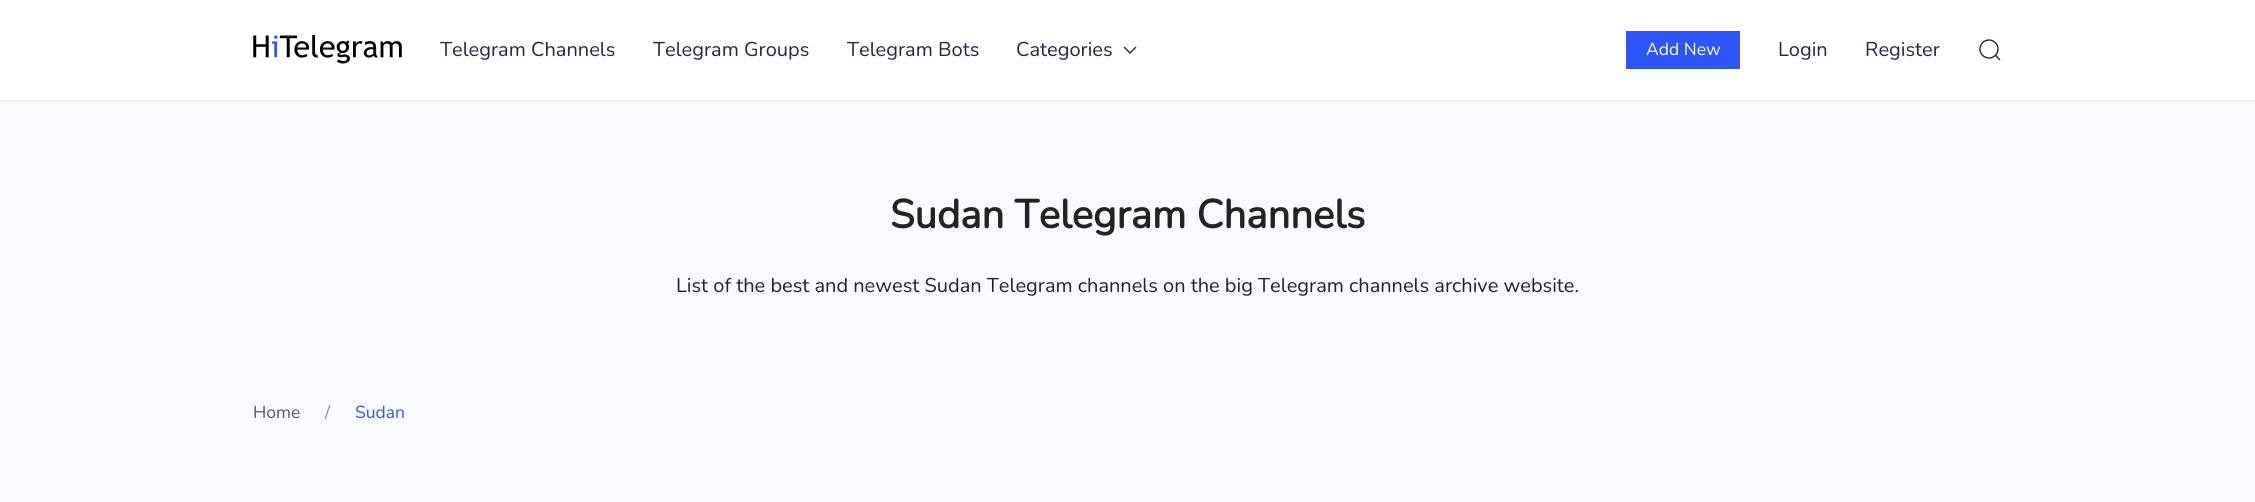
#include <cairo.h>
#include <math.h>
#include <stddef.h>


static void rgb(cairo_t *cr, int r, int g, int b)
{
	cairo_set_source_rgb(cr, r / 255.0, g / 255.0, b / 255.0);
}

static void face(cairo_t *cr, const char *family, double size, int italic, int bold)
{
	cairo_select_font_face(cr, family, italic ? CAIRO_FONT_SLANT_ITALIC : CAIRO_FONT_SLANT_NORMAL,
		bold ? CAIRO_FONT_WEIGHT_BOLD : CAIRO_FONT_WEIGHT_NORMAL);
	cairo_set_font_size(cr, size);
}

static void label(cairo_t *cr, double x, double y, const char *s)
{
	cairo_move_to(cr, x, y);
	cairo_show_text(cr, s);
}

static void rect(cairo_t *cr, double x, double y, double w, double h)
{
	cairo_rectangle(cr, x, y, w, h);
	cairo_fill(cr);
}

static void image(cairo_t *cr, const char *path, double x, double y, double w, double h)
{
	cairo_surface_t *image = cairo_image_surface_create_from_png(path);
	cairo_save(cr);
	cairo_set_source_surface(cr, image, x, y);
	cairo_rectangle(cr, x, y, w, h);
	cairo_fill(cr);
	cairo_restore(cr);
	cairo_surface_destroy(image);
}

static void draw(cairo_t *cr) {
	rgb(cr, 255, 255, 255);
	cairo_paint(cr);
	rgb(cr, 237, 237, 237);
	rect(cr, 0, 100, 2255, 1);
	image(cr, "image0.png", 253, 35, 149, 29);
	face(cr, "Nunito ExtraLight", 20, 0, 0);
	rgb(cr, 34, 40, 69);
	label(cr, 440, 56, "Telegram Channels");
	label(cr, 653, 56, "Telegram Groups");
	label(cr, 847, 56, "Telegram Bots");
	label(cr, 1016, 56, "Categories");
	cairo_new_path(cr);
	cairo_move_to(cr, 1124, 47);
	cairo_line_to(cr, 1130, 53);
	cairo_line_to(cr, 1136, 47);
	cairo_set_line_width(cr, 1.4);
	cairo_stroke(cr);
	rgb(cr, 46, 85, 250);
	rect(cr, 1626, 31, 114, 38);
	face(cr, "Nunito ExtraLight", 17.5, 0, 0);
	rgb(cr, 255, 255, 255);
	label(cr, 1646, 55, "Add New");
	face(cr, "Nunito ExtraLight", 20, 0, 0);
	rgb(cr, 34, 40, 69);
	label(cr, 1778, 56, "Login");
	label(cr, 1865, 56, "Register");
	cairo_new_path(cr);
	cairo_arc(cr, 1989, 49, 9, 0, 2 * M_PI);
	cairo_stroke(cr);
	cairo_new_path(cr);
	cairo_move_to(cr, 1995, 55);
	cairo_line_to(cr, 2000, 60);
	cairo_close_path(cr);
	cairo_stroke(cr);
	rgb(cr, 249, 250, 255);
	rect(cr, 0, 101, 2255, 401);
	face(cr, "Nunito", 40, 0, 1);
	rgb(cr, 35, 35, 35);
	label(cr, 890, 228, "Sudan Telegram Channels");
	face(cr, "Nunito ExtraLight", 20, 0, 0);
	label(cr, 676, 292, "List of the best and newest Sudan Telegram channels on the big Telegram channels archive website.");
	face(cr, "Nunito ExtraLight", 17.5, 0, 0);
	rgb(cr, 89, 89, 89);
	label(cr, 253, 418, "Home");
	rgb(cr, 136, 136, 136);
	label(cr, 325, 418, "/");
	rgb(cr, 46, 85, 250);
	label(cr, 355, 418, "Sudan");
}

int main(void) {
	cairo_surface_t *surface = cairo_image_surface_create(CAIRO_FORMAT_RGB24, 2255, 502);
	cairo_t *cr = cairo_create(surface);
	cairo_font_options_t *options = cairo_font_options_create();
	cairo_font_options_set_hint_metrics(options, CAIRO_HINT_METRICS_OFF);
	cairo_font_options_set_hint_style(options, CAIRO_HINT_STYLE_NONE);
	cairo_set_font_options(cr, options);
	cairo_set_miter_limit(cr, 4);
	draw(cr);
	cairo_surface_write_to_png(surface, "render.png");
	cairo_font_options_destroy(options);
	cairo_destroy(cr);
	cairo_surface_destroy(surface);
	return 0;
}
